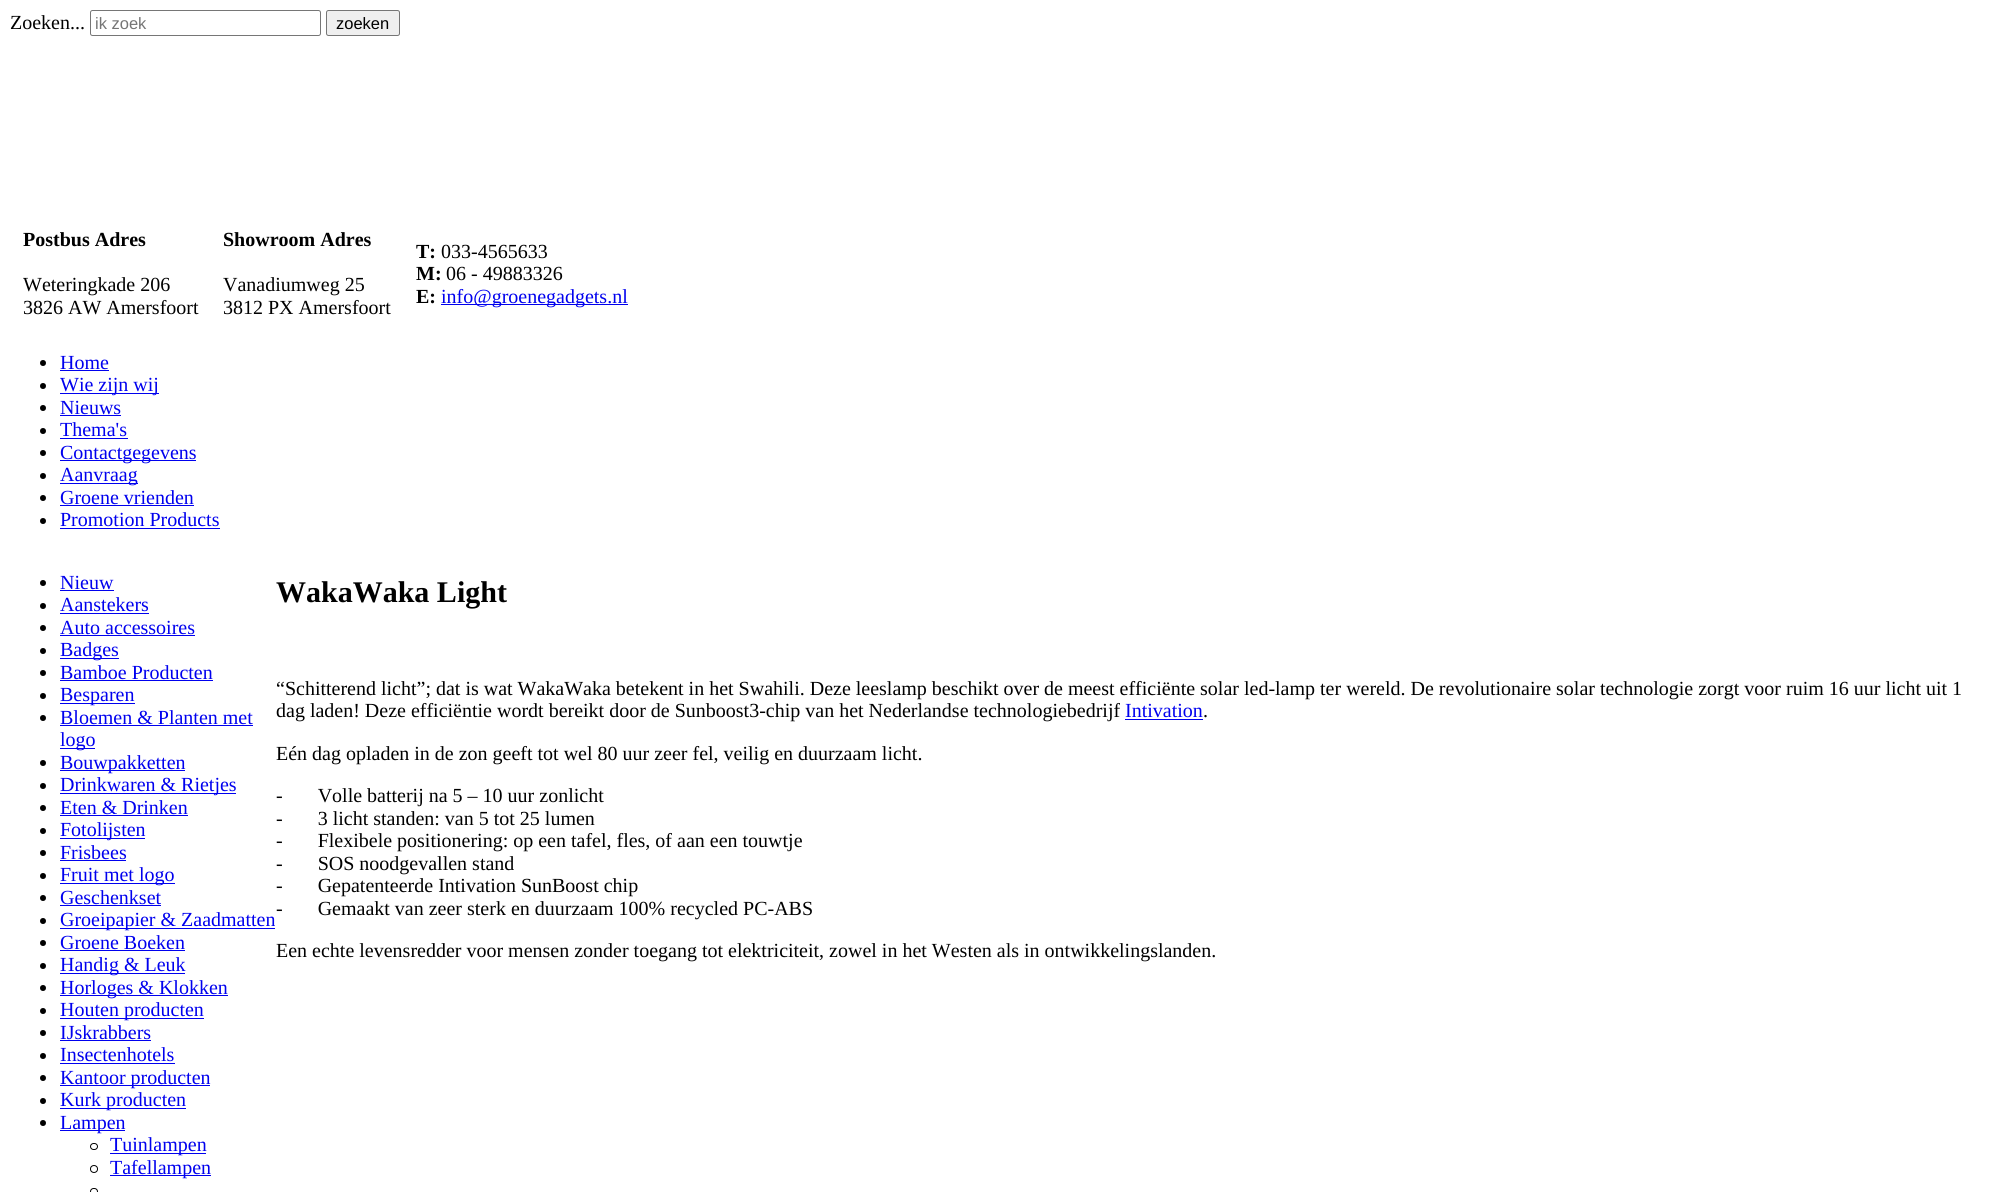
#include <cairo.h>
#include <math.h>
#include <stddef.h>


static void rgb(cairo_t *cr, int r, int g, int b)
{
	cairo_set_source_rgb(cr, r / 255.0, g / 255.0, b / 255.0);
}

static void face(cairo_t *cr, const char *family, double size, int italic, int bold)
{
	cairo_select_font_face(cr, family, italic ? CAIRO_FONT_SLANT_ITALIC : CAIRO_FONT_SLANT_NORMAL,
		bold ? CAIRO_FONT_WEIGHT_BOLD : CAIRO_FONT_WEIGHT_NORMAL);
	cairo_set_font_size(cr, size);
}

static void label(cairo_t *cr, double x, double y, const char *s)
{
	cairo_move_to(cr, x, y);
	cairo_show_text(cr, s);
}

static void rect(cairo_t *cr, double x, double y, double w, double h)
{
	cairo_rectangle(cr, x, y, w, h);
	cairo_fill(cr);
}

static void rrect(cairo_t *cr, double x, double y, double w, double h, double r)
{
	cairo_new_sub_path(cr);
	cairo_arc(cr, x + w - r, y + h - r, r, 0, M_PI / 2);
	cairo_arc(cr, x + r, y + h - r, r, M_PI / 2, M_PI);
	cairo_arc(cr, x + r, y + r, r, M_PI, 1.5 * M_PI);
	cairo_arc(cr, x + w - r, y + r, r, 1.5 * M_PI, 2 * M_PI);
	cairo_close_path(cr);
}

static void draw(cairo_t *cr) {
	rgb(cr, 255, 255, 255);
	cairo_paint(cr);
	face(cr, "Liberation Serif", 20, 0, 0);
	rgb(cr, 0, 0, 0);
	label(cr, 10, 29, "Zoeken...");
	rrect(cr, 90.5, 10.5, 230, 25, 2);
	rgb(cr, 118, 118, 118);
	cairo_set_line_width(cr, 1);
	cairo_stroke(cr);
	face(cr, "Liberation Sans", 16.5, 0, 0);
	rgb(cr, 117, 117, 117);
	label(cr, 95, 29, "ik zoek");
	rgb(cr, 239, 239, 239);
	rrect(cr, 326.5, 10.5, 73, 25, 2);
	cairo_fill_preserve(cr);
	rgb(cr, 118, 118, 118);
	cairo_stroke(cr);
	rgb(cr, 0, 0, 0);
	label(cr, 336, 29, "zoeken");
	face(cr, "Liberation Serif", 20, 0, 1);
	label(cr, 23, 246, "Postbus Adres");
	face(cr, "Liberation Serif", 20, 0, 0);
	label(cr, 23, 291, "Weteringkade 206");
	label(cr, 23, 314, "3826 AW Amersfoort");
	face(cr, "Liberation Serif", 20, 0, 1);
	label(cr, 223, 246, "Showroom Adres");
	face(cr, "Liberation Serif", 20, 0, 0);
	label(cr, 223, 291, "Vanadiumweg 25");
	label(cr, 223, 314, "3812 PX Amersfoort");
	face(cr, "Liberation Serif", 20, 0, 1);
	label(cr, 416, 258, "T:");
	face(cr, "Liberation Serif", 20, 0, 0);
	label(cr, 441, 258, "033-4565633");
	face(cr, "Liberation Serif", 20, 0, 1);
	label(cr, 416, 280, "M:");
	face(cr, "Liberation Serif", 20, 0, 0);
	label(cr, 446, 280, "06 - 49883326");
	face(cr, "Liberation Serif", 20, 0, 1);
	label(cr, 416, 303, "E:");
	rgb(cr, 0, 0, 238);
	rect(cr, 441, 304, 187, 1);
	face(cr, "Liberation Serif", 20, 0, 0);
	label(cr, 441, 303, "info@groenegadgets.nl");
	rgb(cr, 0, 0, 0);
	cairo_new_path(cr);
	cairo_arc(cr, 43, 363, 3, 0, 2 * M_PI);
	cairo_fill(cr);
	rgb(cr, 0, 0, 238);
	label(cr, 60, 369, "Home");
	rect(cr, 60, 370, 49, 1);
	rgb(cr, 0, 0, 0);
	cairo_new_path(cr);
	cairo_arc(cr, 43, 386, 3, 0, 2 * M_PI);
	cairo_fill(cr);
	rgb(cr, 0, 0, 238);
	rect(cr, 60, 393, 99, 1);
	label(cr, 60, 391, "Wie zijn wij");
	rgb(cr, 0, 0, 0);
	cairo_new_path(cr);
	cairo_arc(cr, 43, 408, 3, 0, 2 * M_PI);
	cairo_fill(cr);
	rgb(cr, 0, 0, 238);
	label(cr, 60, 414, "Nieuws");
	rect(cr, 60, 415, 61, 1);
	rgb(cr, 0, 0, 0);
	cairo_new_path(cr);
	cairo_arc(cr, 43, 431, 3, 0, 2 * M_PI);
	cairo_fill(cr);
	rgb(cr, 0, 0, 238);
	label(cr, 60, 436, "Thema's");
	rect(cr, 60, 438, 68, 1);
	rgb(cr, 0, 0, 0);
	cairo_new_path(cr);
	cairo_arc(cr, 43, 453, 3, 0, 2 * M_PI);
	cairo_fill(cr);
	rgb(cr, 0, 0, 238);
	rect(cr, 60, 460, 136, 1);
	label(cr, 60, 459, "Contactgegevens");
	rgb(cr, 0, 0, 0);
	cairo_new_path(cr);
	cairo_arc(cr, 43, 476, 3, 0, 2 * M_PI);
	cairo_fill(cr);
	rgb(cr, 0, 0, 238);
	rect(cr, 60, 483, 78, 1);
	label(cr, 60, 481, "Aanvraag");
	rgb(cr, 0, 0, 0);
	cairo_new_path(cr);
	cairo_arc(cr, 43, 498, 3, 0, 2 * M_PI);
	cairo_fill(cr);
	rgb(cr, 0, 0, 238);
	label(cr, 60, 504, "Groene vrienden");
	rect(cr, 60, 505, 134, 1);
	rgb(cr, 0, 0, 0);
	cairo_new_path(cr);
	cairo_arc(cr, 43, 521, 3, 0, 2 * M_PI);
	cairo_fill(cr);
	rgb(cr, 0, 0, 238);
	label(cr, 60, 526, "Promotion Products");
	rect(cr, 60, 528, 160, 1);
	rgb(cr, 0, 0, 0);
	cairo_new_path(cr);
	cairo_arc(cr, 43, 583, 3, 0, 2 * M_PI);
	cairo_fill(cr);
	rgb(cr, 0, 0, 238);
	label(cr, 60, 589, "Nieuw");
	rect(cr, 60, 590, 54, 1);
	rgb(cr, 0, 0, 0);
	cairo_new_path(cr);
	cairo_arc(cr, 43, 606, 3, 0, 2 * M_PI);
	cairo_fill(cr);
	rgb(cr, 0, 0, 238);
	label(cr, 60, 611, "Aanstekers");
	rect(cr, 60, 613, 89, 1);
	rgb(cr, 0, 0, 0);
	cairo_new_path(cr);
	cairo_arc(cr, 43, 628, 3, 0, 2 * M_PI);
	cairo_fill(cr);
	rgb(cr, 0, 0, 238);
	label(cr, 60, 634, "Auto accessoires");
	rect(cr, 60, 635, 135, 1);
	rgb(cr, 0, 0, 0);
	cairo_new_path(cr);
	cairo_arc(cr, 43, 651, 3, 0, 2 * M_PI);
	cairo_fill(cr);
	rgb(cr, 0, 0, 238);
	rect(cr, 60, 658, 59, 1);
	label(cr, 60, 656, "Badges");
	rgb(cr, 0, 0, 0);
	cairo_new_path(cr);
	cairo_arc(cr, 43, 673, 3, 0, 2 * M_PI);
	cairo_fill(cr);
	rgb(cr, 0, 0, 238);
	label(cr, 60, 679, "Bamboe Producten");
	rect(cr, 60, 680, 153, 1);
	rgb(cr, 0, 0, 0);
	cairo_new_path(cr);
	cairo_arc(cr, 43, 696, 3, 0, 2 * M_PI);
	cairo_fill(cr);
	rgb(cr, 0, 0, 238);
	rect(cr, 60, 703, 75, 1);
	label(cr, 60, 701, "Besparen");
	rgb(cr, 0, 0, 0);
	cairo_new_path(cr);
	cairo_arc(cr, 43, 718, 3, 0, 2 * M_PI);
	cairo_fill(cr);
	rgb(cr, 0, 0, 238);
	label(cr, 60, 724, "Bloemen & Planten met");
	rect(cr, 60, 725, 193, 1);
	rect(cr, 60, 748, 35, 1);
	label(cr, 60, 746, "logo");
	rgb(cr, 0, 0, 0);
	cairo_new_path(cr);
	cairo_arc(cr, 43, 763, 3, 0, 2 * M_PI);
	cairo_fill(cr);
	rgb(cr, 0, 0, 238);
	rect(cr, 60, 770, 125, 1);
	label(cr, 60, 769, "Bouwpakketten");
	rgb(cr, 0, 0, 0);
	cairo_new_path(cr);
	cairo_arc(cr, 43, 786, 3, 0, 2 * M_PI);
	cairo_fill(cr);
	rgb(cr, 0, 0, 238);
	rect(cr, 60, 793, 176, 1);
	label(cr, 60, 791, "Drinkwaren & Rietjes");
	rgb(cr, 0, 0, 0);
	cairo_new_path(cr);
	cairo_arc(cr, 43, 808, 3, 0, 2 * M_PI);
	cairo_fill(cr);
	rgb(cr, 0, 0, 238);
	label(cr, 60, 814, "Eten & Drinken");
	rect(cr, 60, 815, 128, 1);
	rgb(cr, 0, 0, 0);
	cairo_new_path(cr);
	cairo_arc(cr, 43, 831, 3, 0, 2 * M_PI);
	cairo_fill(cr);
	rgb(cr, 0, 0, 238);
	rect(cr, 60, 838, 85, 1);
	label(cr, 60, 836, "Fotolijsten");
	rgb(cr, 0, 0, 0);
	cairo_new_path(cr);
	cairo_arc(cr, 43, 853, 3, 0, 2 * M_PI);
	cairo_fill(cr);
	rgb(cr, 0, 0, 238);
	label(cr, 60, 859, "Frisbees");
	rect(cr, 60, 860, 66, 1);
	rgb(cr, 0, 0, 0);
	cairo_new_path(cr);
	cairo_arc(cr, 43, 876, 3, 0, 2 * M_PI);
	cairo_fill(cr);
	rgb(cr, 0, 0, 238);
	rect(cr, 60, 883, 115, 1);
	label(cr, 60, 881, "Fruit met logo");
	rgb(cr, 0, 0, 0);
	cairo_new_path(cr);
	cairo_arc(cr, 43, 898, 3, 0, 2 * M_PI);
	cairo_fill(cr);
	rgb(cr, 0, 0, 238);
	label(cr, 60, 904, "Geschenkset");
	rect(cr, 60, 905, 101, 1);
	rgb(cr, 0, 0, 0);
	cairo_new_path(cr);
	cairo_arc(cr, 43, 921, 3, 0, 2 * M_PI);
	cairo_fill(cr);
	rgb(cr, 0, 0, 238);
	rect(cr, 60, 928, 215, 1);
	label(cr, 60, 926, "Groeipapier & Zaadmatten");
	rgb(cr, 0, 0, 0);
	cairo_new_path(cr);
	cairo_arc(cr, 43, 943, 3, 0, 2 * M_PI);
	cairo_fill(cr);
	rgb(cr, 0, 0, 238);
	label(cr, 60, 949, "Groene Boeken");
	rect(cr, 60, 950, 125, 1);
	rgb(cr, 0, 0, 0);
	cairo_new_path(cr);
	cairo_arc(cr, 43, 966, 3, 0, 2 * M_PI);
	cairo_fill(cr);
	rgb(cr, 0, 0, 238);
	rect(cr, 60, 973, 125, 1);
	label(cr, 60, 971, "Handig & Leuk");
	rgb(cr, 0, 0, 0);
	cairo_new_path(cr);
	cairo_arc(cr, 43, 988, 3, 0, 2 * M_PI);
	cairo_fill(cr);
	rgb(cr, 0, 0, 238);
	rect(cr, 60, 995, 168, 1);
	label(cr, 60, 994, "Horloges & Klokken");
	rgb(cr, 0, 0, 0);
	cairo_new_path(cr);
	cairo_arc(cr, 43, 1011, 3, 0, 2 * M_PI);
	cairo_fill(cr);
	rgb(cr, 0, 0, 238);
	rect(cr, 60, 1018, 144, 1);
	label(cr, 60, 1016, "Houten producten");
	rgb(cr, 0, 0, 0);
	cairo_new_path(cr);
	cairo_arc(cr, 43, 1033, 3, 0, 2 * M_PI);
	cairo_fill(cr);
	rgb(cr, 0, 0, 238);
	label(cr, 60, 1039, "IJskrabbers");
	rect(cr, 60, 1040, 91, 1);
	rgb(cr, 0, 0, 0);
	cairo_new_path(cr);
	cairo_arc(cr, 43, 1056, 3, 0, 2 * M_PI);
	cairo_fill(cr);
	rgb(cr, 0, 0, 238);
	label(cr, 60, 1061, "Insectenhotels");
	rect(cr, 60, 1063, 115, 1);
	rgb(cr, 0, 0, 0);
	cairo_new_path(cr);
	cairo_arc(cr, 43, 1078, 3, 0, 2 * M_PI);
	cairo_fill(cr);
	rgb(cr, 0, 0, 238);
	rect(cr, 60, 1085, 150, 1);
	label(cr, 60, 1084, "Kantoor producten");
	rgb(cr, 0, 0, 0);
	cairo_new_path(cr);
	cairo_arc(cr, 43, 1101, 3, 0, 2 * M_PI);
	cairo_fill(cr);
	rgb(cr, 0, 0, 238);
	rect(cr, 60, 1108, 126, 1);
	label(cr, 60, 1106, "Kurk producten");
	rgb(cr, 0, 0, 0);
	cairo_new_path(cr);
	cairo_arc(cr, 43, 1123, 3, 0, 2 * M_PI);
	cairo_fill(cr);
	rgb(cr, 0, 0, 238);
	rect(cr, 60, 1130, 65, 1);
	label(cr, 60, 1129, "Lampen");
	rrect(cr, 90.5, 1143.5, 7, 6, 3);
	rgb(cr, 0, 0, 0);
	cairo_stroke(cr);
	rgb(cr, 0, 0, 238);
	rect(cr, 110, 1153, 96, 1);
	label(cr, 110, 1151, "Tuinlampen");
	cairo_new_path(cr);
	cairo_arc(cr, 94, 1169, 3.5, 0, 2 * M_PI);
	rgb(cr, 0, 0, 0);
	cairo_stroke(cr);
	rgb(cr, 0, 0, 238);
	rect(cr, 110, 1175, 101, 1);
	label(cr, 110, 1174, "Tafellampen");
	rrect(cr, 90.5, 1188.5, 7, 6, 3);
	rgb(cr, 0, 0, 0);
	cairo_stroke(cr);
	face(cr, "Liberation Serif", 30, 0, 1);
	label(cr, 276, 602, "WakaWaka Light");
	face(cr, "Liberation Serif", 20, 0, 0);
	label(cr, 276, 695, "“Schitterend licht”; dat is wat WakaWaka betekent in het Swahili. Deze leeslamp beschikt over de meest efficiënte solar led-lamp ter wereld. De revolutionaire solar technologie zorgt voor ruim 16 uur licht uit 1");
	label(cr, 276, 717, "dag laden! Deze efficiëntie wordt bereikt door de Sunboost3-chip van het Nederlandse technologiebedrijf");
	rgb(cr, 0, 0, 238);
	label(cr, 1125, 717, "Intivation");
	rect(cr, 1125, 719, 78, 1);
	rgb(cr, 0, 0, 0);
	label(cr, 1203, 717, ".");
	label(cr, 276, 760, "Eén dag opladen in de zon geeft tot wel 80 uur zeer fel, veilig en duurzaam licht.");
	label(cr, 276, 802, "-       Volle batterij na 5 – 10 uur zonlicht");
	label(cr, 276, 825, "-       3 licht standen: van 5 tot 25 lumen");
	label(cr, 276, 847, "-       Flexibele positionering: op een tafel, fles, of aan een touwtje");
	label(cr, 276, 870, "-       SOS noodgevallen stand");
	label(cr, 276, 892, "-       Gepatenteerde Intivation SunBoost chip");
	label(cr, 276, 915, "-       Gemaakt van zeer sterk en duurzaam 100% recycled PC-ABS");
	label(cr, 276, 957, "Een echte levensredder voor mensen zonder toegang tot elektriciteit, zowel in het Westen als in ontwikkelingslanden.");
}

int main(void) {
	cairo_surface_t *surface = cairo_image_surface_create(CAIRO_FORMAT_RGB24, 2001, 1192);
	cairo_t *cr = cairo_create(surface);
	cairo_font_options_t *options = cairo_font_options_create();
	cairo_font_options_set_hint_metrics(options, CAIRO_HINT_METRICS_OFF);
	cairo_font_options_set_hint_style(options, CAIRO_HINT_STYLE_NONE);
	cairo_set_font_options(cr, options);
	cairo_set_miter_limit(cr, 4);
	draw(cr);
	cairo_surface_write_to_png(surface, "render.png");
	cairo_font_options_destroy(options);
	cairo_destroy(cr);
	cairo_surface_destroy(surface);
	return 0;
}
